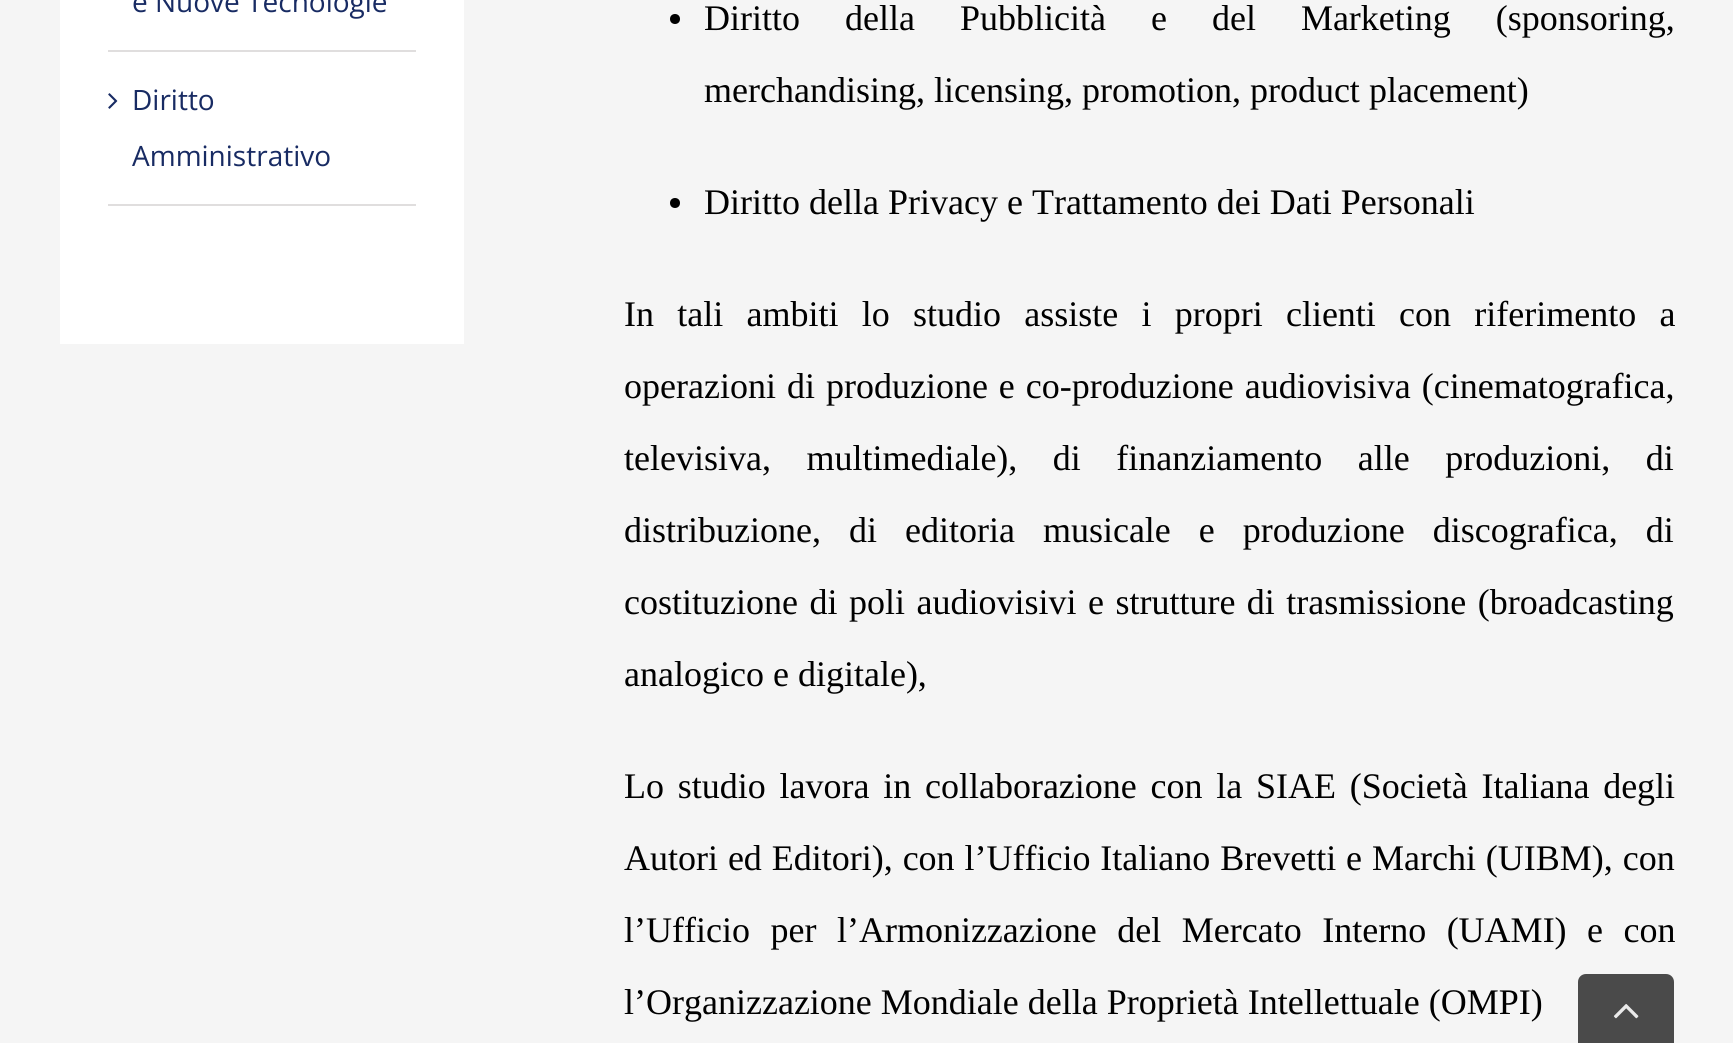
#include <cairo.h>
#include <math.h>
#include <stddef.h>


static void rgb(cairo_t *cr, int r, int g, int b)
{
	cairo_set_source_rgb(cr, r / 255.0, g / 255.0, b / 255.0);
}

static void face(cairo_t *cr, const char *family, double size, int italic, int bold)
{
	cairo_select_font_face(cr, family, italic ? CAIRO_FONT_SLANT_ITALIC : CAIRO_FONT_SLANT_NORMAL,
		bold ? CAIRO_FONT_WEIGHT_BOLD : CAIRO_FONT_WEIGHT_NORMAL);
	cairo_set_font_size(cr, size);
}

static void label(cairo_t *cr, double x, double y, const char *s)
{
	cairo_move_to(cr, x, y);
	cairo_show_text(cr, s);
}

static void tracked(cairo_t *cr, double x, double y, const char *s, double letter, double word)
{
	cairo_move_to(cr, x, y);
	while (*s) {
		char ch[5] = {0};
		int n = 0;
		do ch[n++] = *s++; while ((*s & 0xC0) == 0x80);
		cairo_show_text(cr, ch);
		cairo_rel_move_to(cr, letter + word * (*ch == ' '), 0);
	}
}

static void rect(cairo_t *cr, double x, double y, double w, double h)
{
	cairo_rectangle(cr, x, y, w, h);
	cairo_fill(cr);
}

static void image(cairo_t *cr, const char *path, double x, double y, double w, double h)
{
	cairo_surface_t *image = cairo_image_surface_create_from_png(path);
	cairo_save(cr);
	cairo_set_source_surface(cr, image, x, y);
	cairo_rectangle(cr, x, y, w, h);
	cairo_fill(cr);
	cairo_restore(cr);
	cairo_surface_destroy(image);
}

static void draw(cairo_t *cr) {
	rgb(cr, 245, 245, 245);
	cairo_paint(cr);
	rgb(cr, 255, 255, 255);
	rect(cr, 60, 0, 404, 344);
	rgb(cr, 224, 222, 222);
	rect(cr, 108, 50, 308, 2);
	face(cr, "Open Sans", 28, 0, 0);
	rgb(cr, 24, 43, 99);
	label(cr, 132, 12, "e Nuove Tecnologie");
	rgb(cr, 224, 222, 222);
	rect(cr, 108, 204, 308, 2);
	image(cr, "image0.png", 108, 93, 10, 16);
	rgb(cr, 24, 43, 99);
	label(cr, 132, 110, "Diritto");
	label(cr, 132, 166, "Amministrativo");
	rgb(cr, 0, 0, 0);
	cairo_new_path(cr);
	cairo_arc(cr, 675, 19, 5, 0, 2 * M_PI);
	cairo_fill(cr);
	face(cr, "Liberation Serif", 36, 0, 0);
	tracked(cr, 704, 30, "Diritto della Pubblicità e del Marketing (sponsoring,", 0, 36);
	label(cr, 704, 102, "merchandising, licensing, promotion, product placement)");
	cairo_new_path(cr);
	cairo_arc(cr, 675, 203, 5, 0, 2 * M_PI);
	cairo_fill(cr);
	label(cr, 704, 214, "Diritto della Privacy e Trattamento dei Dati Personali");
	tracked(cr, 624, 326, "In tali ambiti lo studio assiste i propri clienti con riferimento a", 0, 14.25);
	tracked(cr, 624, 398, "operazioni di produzione e co-produzione audiovisiva (cinematografica,", 0, 2);
	tracked(cr, 624, 470, "televisiva, multimediale), di finanziamento alle produzioni, di", 0, 26.5);
	tracked(cr, 624, 542, "distribuzione, di editoria musicale e produzione discografica, di", 0, 19);
	tracked(cr, 624, 614, "costituzione di poli audiovisivi e strutture di trasmissione (broadcasting", 0, 2.5);
	label(cr, 624, 686, "analogico e digitale),");
	tracked(cr, 624, 798, "Lo studio lavora in collaborazione con la SIAE (Società Italiana degli", 0, 4.75);
	tracked(cr, 624, 870, "Autori ed Editori), con l’Ufficio Italiano Brevetti e Marchi (UIBM), con", 0, 0.9);
	tracked(cr, 624, 942, "l’Ufficio per l’Armonizzazione del Mercato Interno (UAMI) e con", 0, 11.5);
	label(cr, 624, 1014, "l’Organizzazione Mondiale della Proprietà Intellettuale (OMPI)");
	rgb(cr, 74, 74, 74);
	cairo_new_path(cr);
	cairo_move_to(cr, 1586, 974);
	cairo_line_to(cr, 1666, 974);
	cairo_curve_to(cr, 1670.5, 974, 1674, 977.5, 1674, 982);
	cairo_line_to(cr, 1674, 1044);
	cairo_line_to(cr, 1578, 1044);
	cairo_line_to(cr, 1578, 982);
	cairo_curve_to(cr, 1578, 977.5, 1581.5, 974, 1586, 974);
	cairo_close_path(cr);
	cairo_fill(cr);
	image(cr, "image1.png", 1613, 1004, 26, 15);
}

int main(void) {
	cairo_surface_t *surface = cairo_image_surface_create(CAIRO_FORMAT_RGB24, 1733, 1043);
	cairo_t *cr = cairo_create(surface);
	cairo_font_options_t *options = cairo_font_options_create();
	cairo_font_options_set_hint_metrics(options, CAIRO_HINT_METRICS_OFF);
	cairo_font_options_set_hint_style(options, CAIRO_HINT_STYLE_NONE);
	cairo_set_font_options(cr, options);
	cairo_set_miter_limit(cr, 4);
	draw(cr);
	cairo_surface_write_to_png(surface, "render.png");
	cairo_font_options_destroy(options);
	cairo_destroy(cr);
	cairo_surface_destroy(surface);
	return 0;
}
